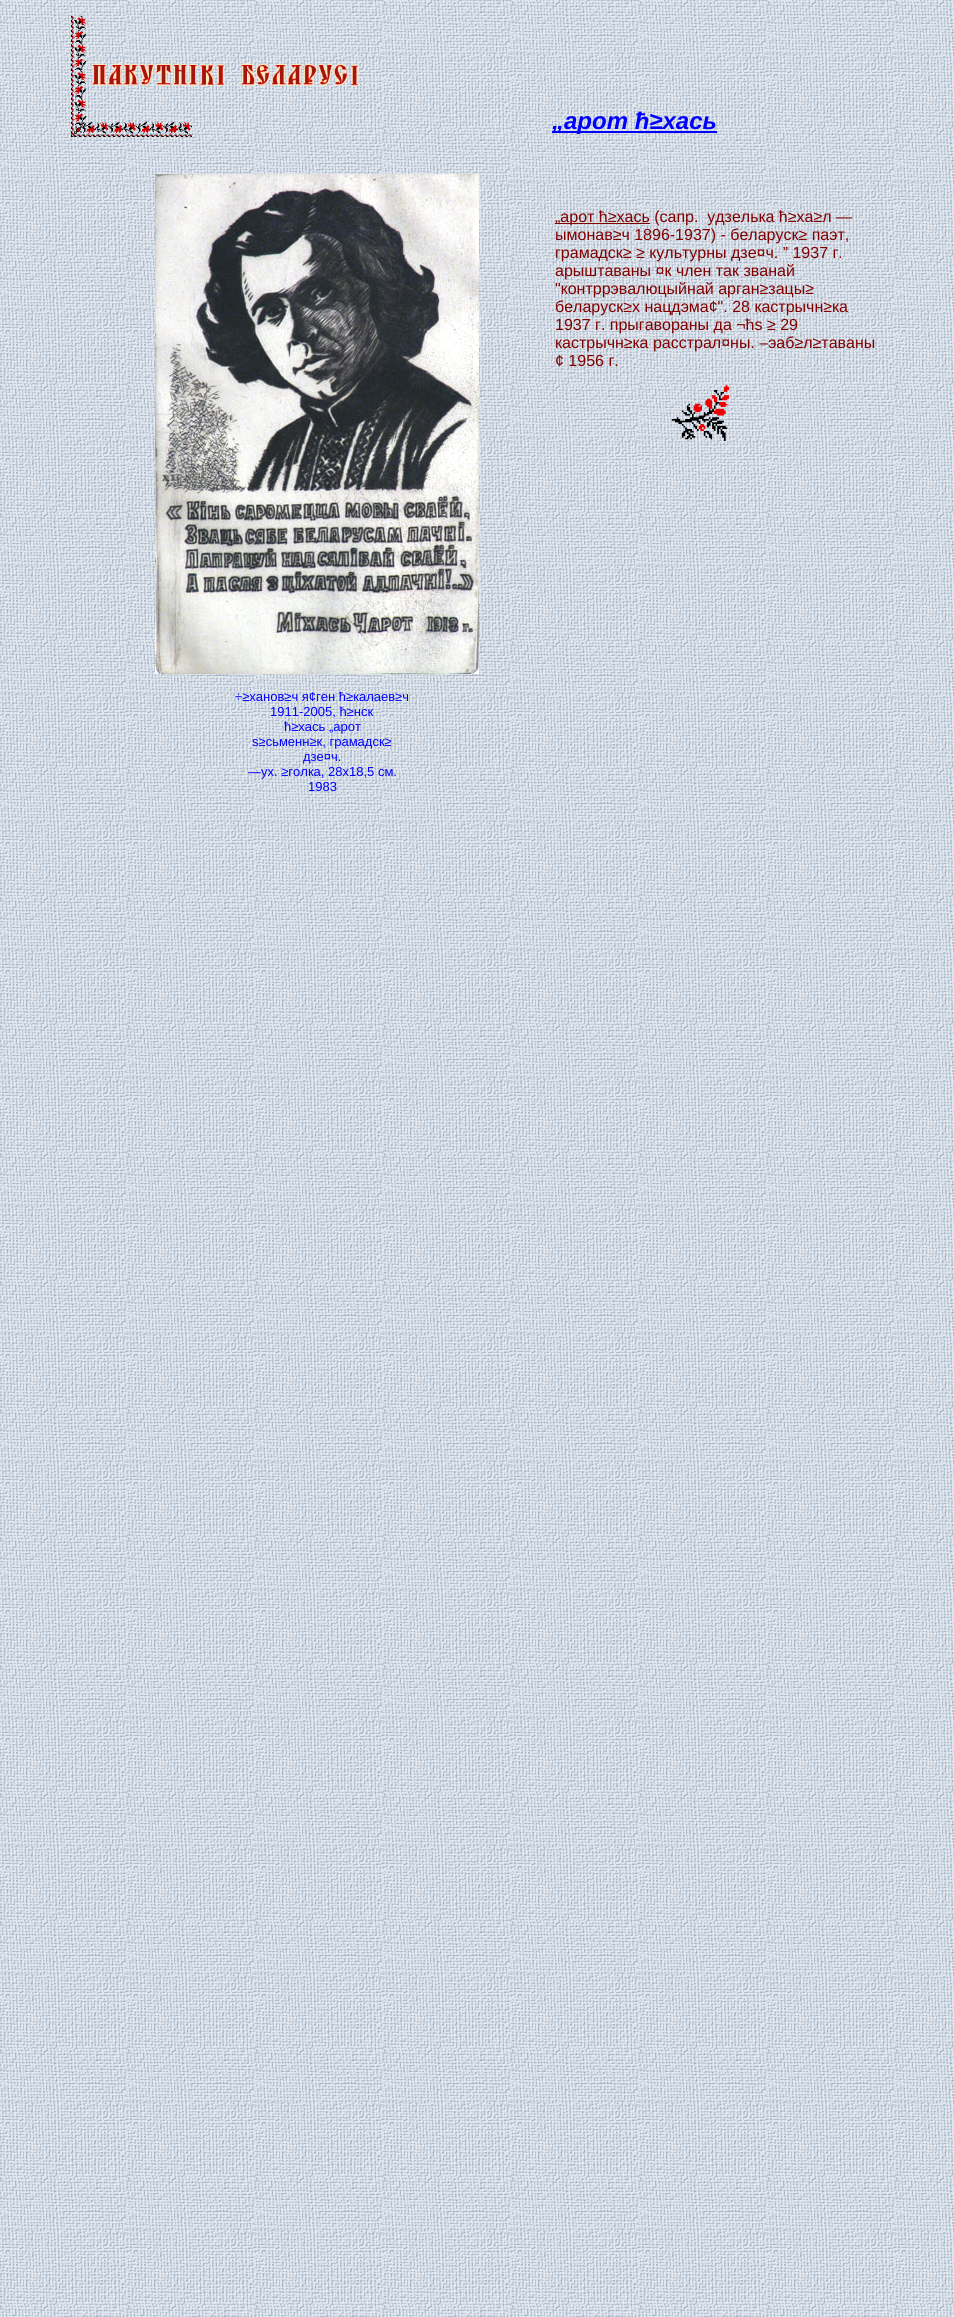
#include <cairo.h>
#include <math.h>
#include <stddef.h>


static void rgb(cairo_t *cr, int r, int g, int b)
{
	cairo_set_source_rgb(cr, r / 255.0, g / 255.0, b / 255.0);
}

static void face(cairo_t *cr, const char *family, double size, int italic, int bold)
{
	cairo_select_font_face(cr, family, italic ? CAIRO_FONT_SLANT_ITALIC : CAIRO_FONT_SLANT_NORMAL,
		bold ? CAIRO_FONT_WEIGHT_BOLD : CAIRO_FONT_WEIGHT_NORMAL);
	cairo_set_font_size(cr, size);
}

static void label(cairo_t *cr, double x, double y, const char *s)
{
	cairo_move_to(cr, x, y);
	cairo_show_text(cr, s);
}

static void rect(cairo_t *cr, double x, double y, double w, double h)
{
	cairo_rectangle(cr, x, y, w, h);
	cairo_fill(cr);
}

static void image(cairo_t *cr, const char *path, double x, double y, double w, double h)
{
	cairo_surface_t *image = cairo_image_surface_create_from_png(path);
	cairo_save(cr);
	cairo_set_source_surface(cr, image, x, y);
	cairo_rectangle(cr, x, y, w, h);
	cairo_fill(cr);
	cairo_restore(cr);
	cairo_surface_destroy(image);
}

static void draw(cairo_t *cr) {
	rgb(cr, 255, 255, 255);
	cairo_paint(cr);
	image(cr, "image0.png", 0, 0, 954, 2317);
	image(cr, "image2.png", 92, 63, 266, 24);
	image(cr, "image1.png", 71, 16, 121, 121);
	rgb(cr, 0, 0, 255);
	rect(cr, 552, 131, 165, 2);
	face(cr, "Liberation Sans", 24, 1, 1);
	label(cr, 552, 129, "„арот ћ≥хась");
	image(cr, "image3.png", 155, 174, 324, 500);
	rgb(cr, 128, 0, 0);
	rect(cr, 555, 223, 95, 1);
	face(cr, "Liberation Sans", 16, 0, 0);
	label(cr, 555, 222, "„арот ћ≥хась (сапр.  удзелька ћ≥ха≥л —");
	label(cr, 555, 240, "ымонав≥ч 1896-1937) - беларуск≥ паэт,");
	label(cr, 555, 258, "грамадск≥ ≥ культурны дзе¤ч. ” 1937 г.");
	label(cr, 555, 276, "арыштаваны ¤к член так званай");
	label(cr, 555, 294, "\"контррэвалюцыйнай арган≥зацы≥");
	label(cr, 555, 312, "беларуск≥х нацдэма¢\". 28 кастрычн≥ка");
	label(cr, 555, 330, "1937 г. прыгавораны да ¬ћѕ ≥ 29");
	label(cr, 555, 348, "кастрычн≥ка расстрал¤ны. –эаб≥л≥таваны");
	label(cr, 555, 366, "¢ 1956 г.");
	image(cr, "image4.png", 671, 385, 58, 56);
	face(cr, "Liberation Sans", 13, 0, 0);
	rgb(cr, 0, 0, 255);
	label(cr, 235, 701, "÷≥ханов≥ч я¢ген ћ≥калаев≥ч");
	label(cr, 270, 716, "1911-2005, ћ≥нск");
	label(cr, 284, 731, "ћ≥хась „арот");
	label(cr, 252, 746, "ѕ≥сьменн≥к, грамадск≥");
	label(cr, 303, 761, "дзе¤ч.");
	label(cr, 248, 776, "—ух. ≥голка, 28х18,5 см.");
	label(cr, 308, 791, "1983");
}

int main(void) {
	cairo_surface_t *surface = cairo_image_surface_create(CAIRO_FORMAT_RGB24, 954, 2317);
	cairo_t *cr = cairo_create(surface);
	cairo_font_options_t *options = cairo_font_options_create();
	cairo_font_options_set_hint_metrics(options, CAIRO_HINT_METRICS_OFF);
	cairo_font_options_set_hint_style(options, CAIRO_HINT_STYLE_NONE);
	cairo_set_font_options(cr, options);
	cairo_set_miter_limit(cr, 4);
	draw(cr);
	cairo_surface_write_to_png(surface, "render.png");
	cairo_font_options_destroy(options);
	cairo_destroy(cr);
	cairo_surface_destroy(surface);
	return 0;
}
